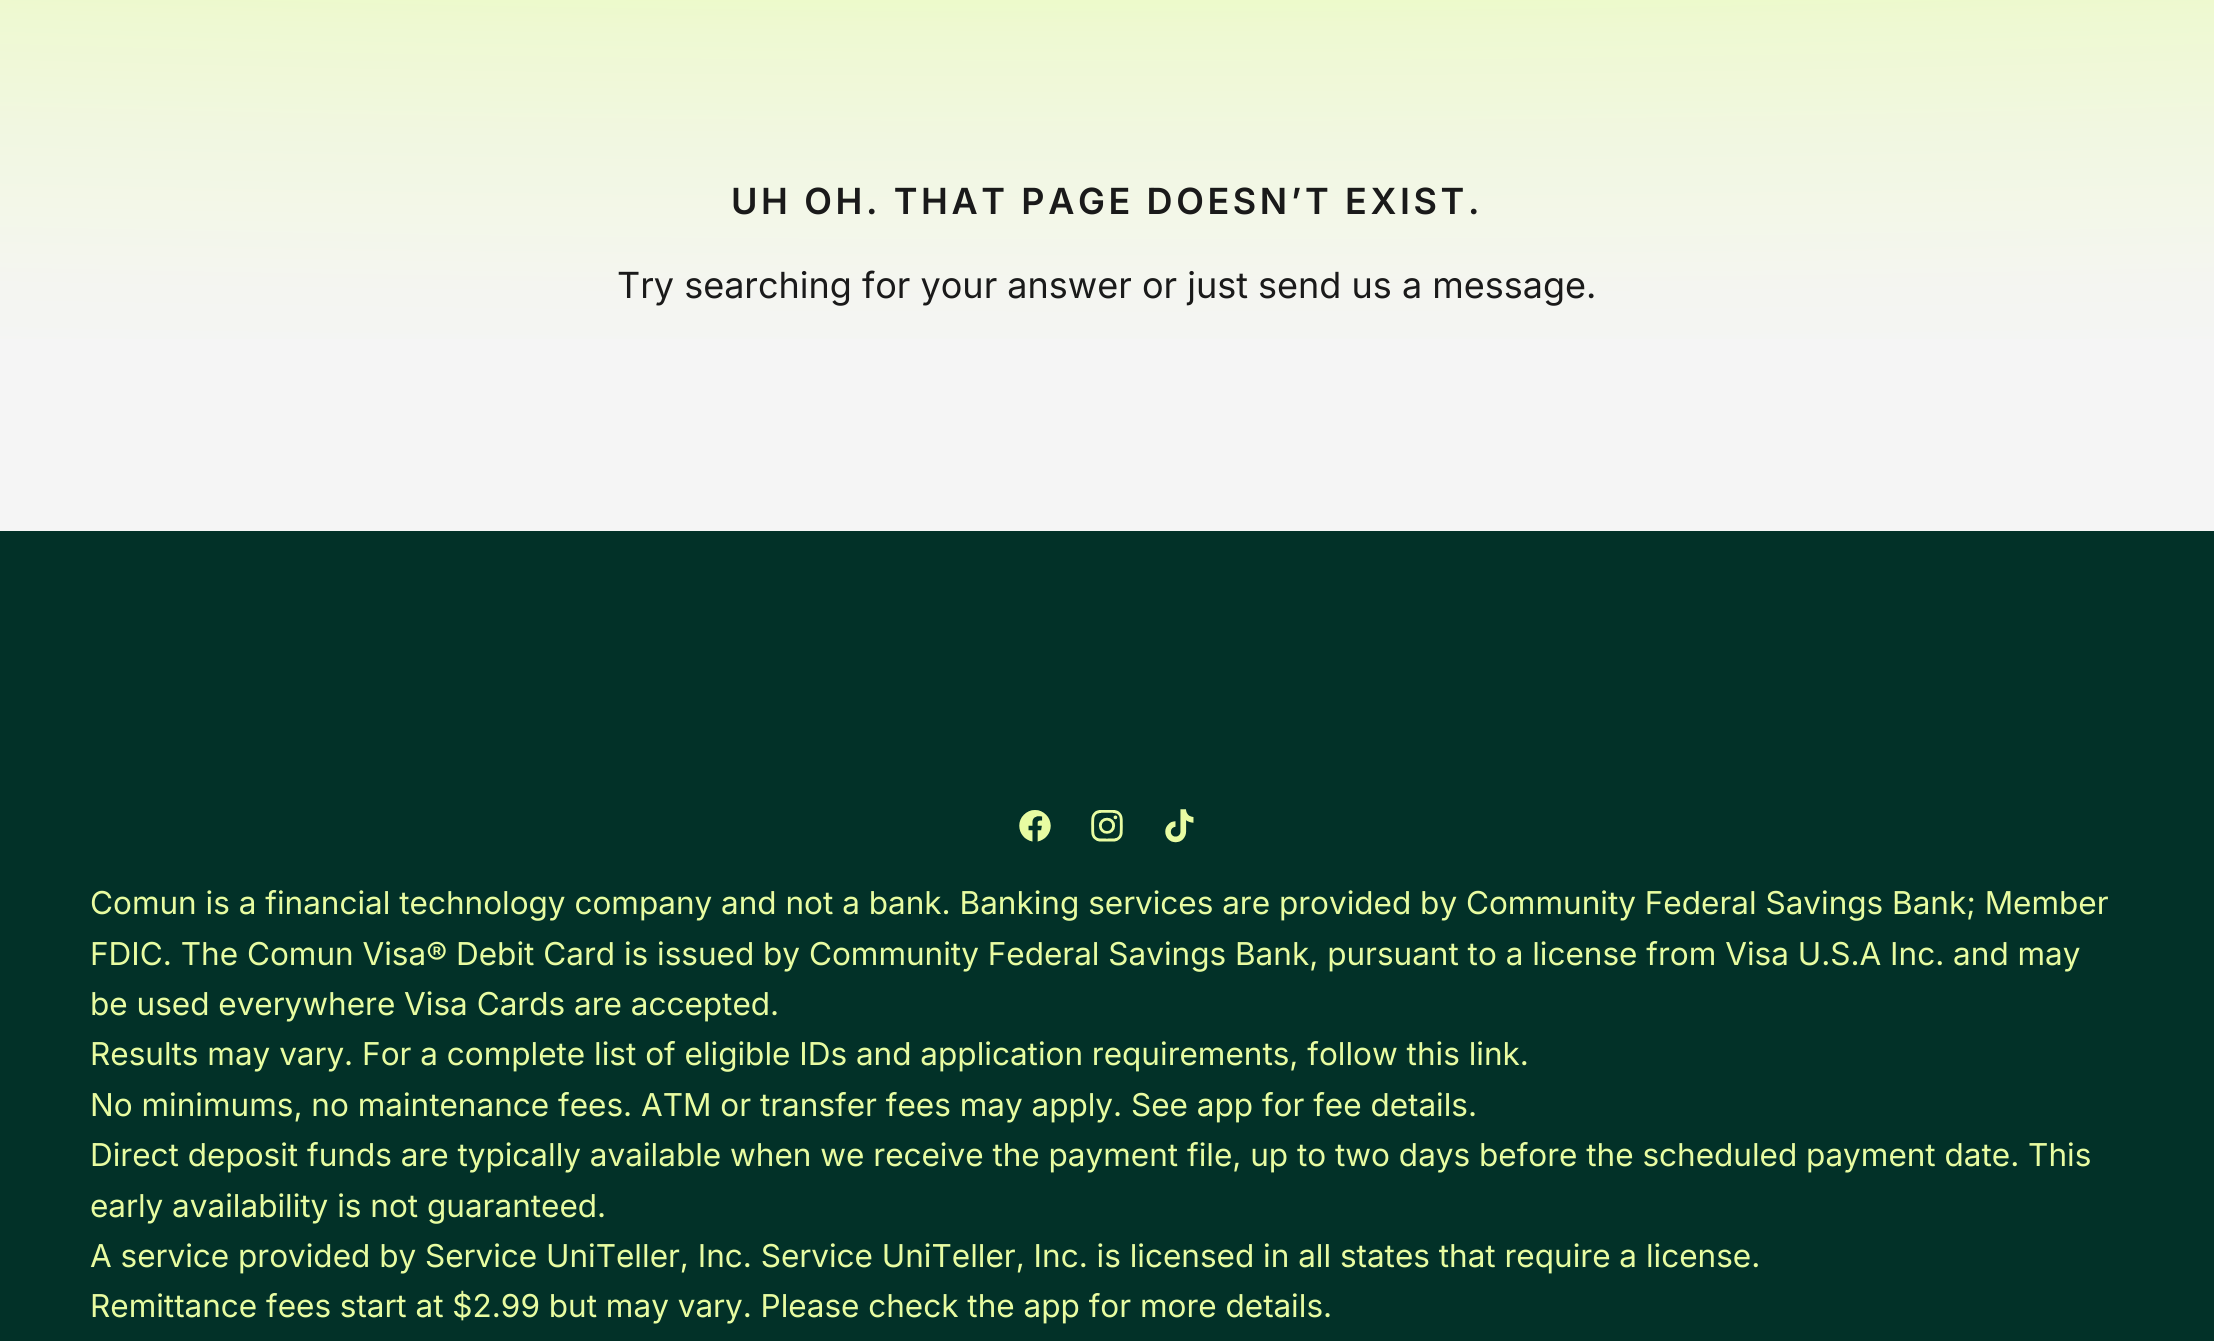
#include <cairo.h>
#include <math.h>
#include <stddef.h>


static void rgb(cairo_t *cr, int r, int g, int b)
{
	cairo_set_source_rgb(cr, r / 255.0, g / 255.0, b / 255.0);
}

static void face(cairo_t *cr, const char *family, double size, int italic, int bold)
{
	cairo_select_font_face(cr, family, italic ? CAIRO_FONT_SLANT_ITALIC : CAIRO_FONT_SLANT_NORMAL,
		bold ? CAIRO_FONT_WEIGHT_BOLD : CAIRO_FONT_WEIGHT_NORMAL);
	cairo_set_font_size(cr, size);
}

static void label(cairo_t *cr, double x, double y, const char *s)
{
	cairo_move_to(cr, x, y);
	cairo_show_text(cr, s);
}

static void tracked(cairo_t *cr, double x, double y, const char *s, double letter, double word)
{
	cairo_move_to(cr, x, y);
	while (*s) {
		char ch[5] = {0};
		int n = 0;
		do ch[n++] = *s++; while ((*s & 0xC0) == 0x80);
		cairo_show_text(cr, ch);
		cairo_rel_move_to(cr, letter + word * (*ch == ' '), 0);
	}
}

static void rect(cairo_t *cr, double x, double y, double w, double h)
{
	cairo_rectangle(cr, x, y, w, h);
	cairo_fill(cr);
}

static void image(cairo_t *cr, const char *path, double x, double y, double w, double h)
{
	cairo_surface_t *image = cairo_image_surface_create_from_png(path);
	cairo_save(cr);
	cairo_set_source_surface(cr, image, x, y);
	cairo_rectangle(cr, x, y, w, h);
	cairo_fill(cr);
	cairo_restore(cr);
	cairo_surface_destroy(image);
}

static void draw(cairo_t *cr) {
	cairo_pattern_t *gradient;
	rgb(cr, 245, 245, 245);
	cairo_paint(cr);
	gradient = cairo_pattern_create_radial(0, 0, 0, 0, 0, 1);
	cairo_pattern_set_matrix(gradient, &(cairo_matrix_t){1.0 / 7381, 0, 0, 1.0 / 911, -1.0 * 1107 / 7381, -1.0 * -504 / 911});
	cairo_pattern_add_color_stop_rgba(gradient, 0, 0.898, 1, 0.627, 1);
	cairo_pattern_add_color_stop_rgba(gradient, 0.12, 0.898, 1, 0.631, 1);
	cairo_pattern_add_color_stop_rgba(gradient, 0.21, 0.902, 0.996, 0.639, 1);
	cairo_pattern_add_color_stop_rgba(gradient, 0.29, 0.902, 0.996, 0.651, 1);
	cairo_pattern_add_color_stop_rgba(gradient, 0.35, 0.906, 0.996, 0.671, 1);
	cairo_pattern_add_color_stop_rgba(gradient, 0.4, 0.91, 0.992, 0.69, 1);
	cairo_pattern_add_color_stop_rgba(gradient, 0.44, 0.914, 0.988, 0.714, 1);
	cairo_pattern_add_color_stop_rgba(gradient, 0.48, 0.918, 0.988, 0.737, 1);
	cairo_pattern_add_color_stop_rgba(gradient, 0.52, 0.925, 0.984, 0.765, 1);
	cairo_pattern_add_color_stop_rgba(gradient, 0.55, 0.929, 0.98, 0.792, 1);
	cairo_pattern_add_color_stop_rgba(gradient, 0.59, 0.933, 0.976, 0.824, 1);
	cairo_pattern_add_color_stop_rgba(gradient, 0.65, 0.941, 0.973, 0.851, 1);
	cairo_pattern_add_color_stop_rgba(gradient, 0.71, 0.945, 0.969, 0.882, 1);
	cairo_pattern_add_color_stop_rgba(gradient, 0.79, 0.953, 0.969, 0.91, 1);
	cairo_pattern_add_color_stop_rgba(gradient, 0.88, 0.957, 0.961, 0.945, 1);
	cairo_pattern_add_color_stop_rgba(gradient, 1, 0.961, 0.961, 0.961, 1);
	cairo_set_source(cr, gradient);
	cairo_pattern_destroy(gradient);
	rect(cr, 0, 0, 2214, 339);
	face(cr, "Inter SemiBold", 36, 0, 0);
	rgb(cr, 26, 26, 26);
	tracked(cr, 731, 214, "UH OH. THAT PAGE DOESN’T EXIST.", 3.6, 0);
	face(cr, "Inter", 36, 0, 0);
	label(cr, 617, 298, "Try searching for your answer or just send us a message.");
	rgb(cr, 2, 49, 40);
	rect(cr, 0, 531, 2214, 810);
	image(cr, "image0.png", 1019, 810, 32, 32);
	image(cr, "image1.png", 1091, 810, 32, 32);
	image(cr, "image2.png", 1165, 809, 29, 34);
	face(cr, "Inter", 31.5, 0, 0);
	rgb(cr, 232, 252, 161);
	label(cr, 90, 914, "Comun is a financial technology company and not a bank. Banking services are provided by Community Federal Savings Bank; Member");
	label(cr, 90, 965, "FDIC. The Comun Visa® Debit Card is issued by Community Federal Savings Bank, pursuant to a license from Visa U.S.A Inc. and may");
	label(cr, 90, 1015, "be used everywhere Visa Cards are accepted.");
	label(cr, 90, 1065, "Results may vary. For a complete list of eligible IDs and application requirements, follow this link.");
	label(cr, 90, 1116, "No minimums, no maintenance fees. ATM or transfer fees may apply. See app for fee details.");
	label(cr, 90, 1166, "Direct deposit funds are typically available when we receive the payment file, up to two days before the scheduled payment date. This");
	label(cr, 90, 1217, "early availability is not guaranteed.");
	label(cr, 90, 1267, "A service provided by Service UniTeller, Inc. Service UniTeller, Inc. is licensed in all states that require a license.");
	label(cr, 90, 1317, "Remittance fees start at $2.99 but may vary. Please check the app for more details.");
}

int main(void) {
	cairo_surface_t *surface = cairo_image_surface_create(CAIRO_FORMAT_RGB24, 2214, 1341);
	cairo_t *cr = cairo_create(surface);
	cairo_font_options_t *options = cairo_font_options_create();
	cairo_font_options_set_hint_metrics(options, CAIRO_HINT_METRICS_OFF);
	cairo_font_options_set_hint_style(options, CAIRO_HINT_STYLE_NONE);
	cairo_set_font_options(cr, options);
	cairo_set_miter_limit(cr, 4);
	draw(cr);
	cairo_surface_write_to_png(surface, "render.png");
	cairo_font_options_destroy(options);
	cairo_destroy(cr);
	cairo_surface_destroy(surface);
	return 0;
}
